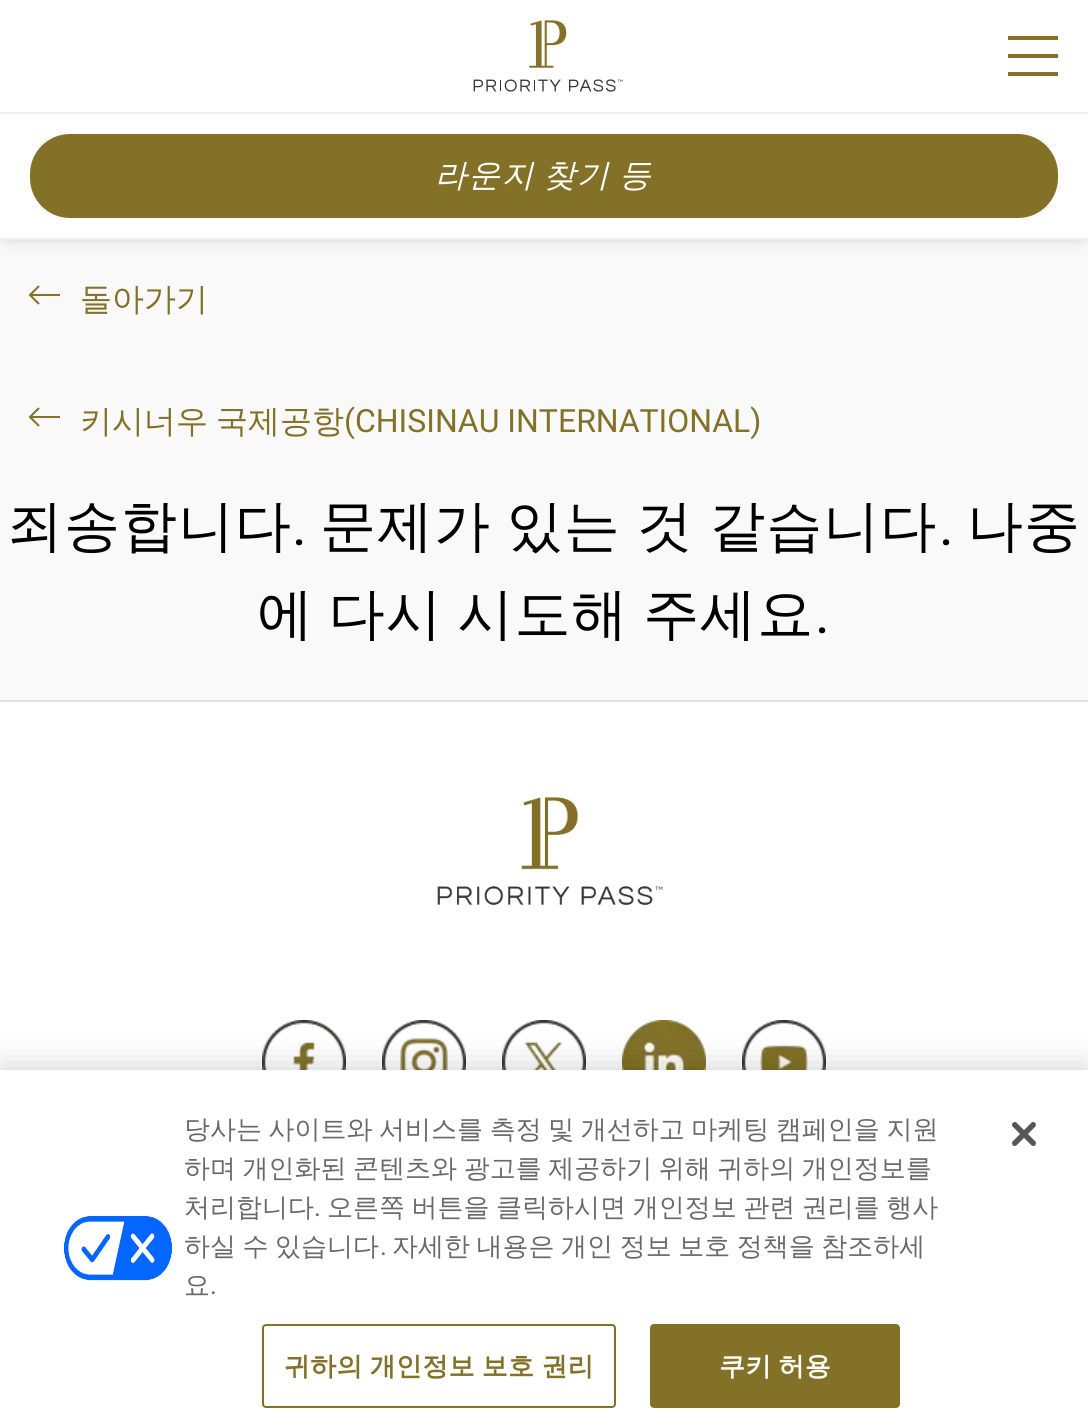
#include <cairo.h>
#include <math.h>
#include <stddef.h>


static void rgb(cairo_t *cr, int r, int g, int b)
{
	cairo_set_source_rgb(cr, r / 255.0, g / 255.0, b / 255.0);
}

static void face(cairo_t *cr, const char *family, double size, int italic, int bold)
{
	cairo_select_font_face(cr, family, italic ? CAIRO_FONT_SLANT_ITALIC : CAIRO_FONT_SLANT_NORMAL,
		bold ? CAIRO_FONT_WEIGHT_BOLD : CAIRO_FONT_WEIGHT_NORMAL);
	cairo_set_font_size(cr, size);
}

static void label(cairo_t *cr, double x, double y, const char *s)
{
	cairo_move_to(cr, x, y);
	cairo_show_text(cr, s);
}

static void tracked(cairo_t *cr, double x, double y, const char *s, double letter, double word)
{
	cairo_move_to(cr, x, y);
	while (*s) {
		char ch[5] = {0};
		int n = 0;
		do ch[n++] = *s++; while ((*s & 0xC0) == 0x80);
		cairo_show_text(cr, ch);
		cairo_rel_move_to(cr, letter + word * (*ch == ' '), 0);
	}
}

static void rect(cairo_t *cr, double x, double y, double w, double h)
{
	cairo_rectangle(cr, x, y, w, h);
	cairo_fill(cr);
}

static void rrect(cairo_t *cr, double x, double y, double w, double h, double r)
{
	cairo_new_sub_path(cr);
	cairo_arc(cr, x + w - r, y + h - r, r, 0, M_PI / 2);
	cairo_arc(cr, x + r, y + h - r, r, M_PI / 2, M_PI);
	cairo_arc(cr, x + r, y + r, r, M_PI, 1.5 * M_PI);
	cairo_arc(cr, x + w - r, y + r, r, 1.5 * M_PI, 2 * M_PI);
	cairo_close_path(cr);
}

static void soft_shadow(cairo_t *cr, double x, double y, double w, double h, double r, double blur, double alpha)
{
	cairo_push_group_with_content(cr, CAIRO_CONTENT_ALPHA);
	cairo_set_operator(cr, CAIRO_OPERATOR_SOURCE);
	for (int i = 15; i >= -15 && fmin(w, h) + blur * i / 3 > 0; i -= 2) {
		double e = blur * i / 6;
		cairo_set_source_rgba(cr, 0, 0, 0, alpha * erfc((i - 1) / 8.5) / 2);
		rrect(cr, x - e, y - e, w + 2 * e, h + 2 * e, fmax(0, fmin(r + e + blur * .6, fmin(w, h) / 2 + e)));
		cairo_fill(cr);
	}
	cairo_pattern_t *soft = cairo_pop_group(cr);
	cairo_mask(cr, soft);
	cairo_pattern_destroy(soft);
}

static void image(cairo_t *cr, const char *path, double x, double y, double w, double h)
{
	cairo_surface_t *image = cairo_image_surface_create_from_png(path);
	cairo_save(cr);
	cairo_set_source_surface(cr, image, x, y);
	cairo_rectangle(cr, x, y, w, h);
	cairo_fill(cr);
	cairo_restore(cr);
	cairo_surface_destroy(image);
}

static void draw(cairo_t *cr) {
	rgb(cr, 249, 249, 249);
	cairo_paint(cr);
	rgb(cr, 169, 169, 169);
	soft_shadow(cr, 8, 10, 1072, 224, 0, 9, 1);
	rgb(cr, 255, 255, 255);
	rect(cr, 0, 0, 1088, 238);
	rgb(cr, 238, 238, 238);
	rect(cr, 0, 238, 1088, 2);
	image(cr, "image0.png", 473, 20, 150, 72);
	rgb(cr, 130, 113, 39);
	rect(cr, 1008, 36, 50, 4);
	rect(cr, 1008, 54, 50, 4);
	rect(cr, 1008, 72, 50, 4);
	rgb(cr, 238, 238, 238);
	rect(cr, 0, 112, 1088, 2);
	rgb(cr, 130, 113, 39);
	rrect(cr, 30, 134, 1028, 84, 40);
	cairo_fill(cr);
	face(cr, "WenQuanYi Zen Hei Medium", 32, 1, 0);
	rgb(cr, 255, 255, 255);
	tracked(cr, 435, 186, "라운지 찾기 등", 1.25, -2);
	cairo_new_path(cr);
	cairo_move_to(cr, 39, 286);
	cairo_line_to(cr, 30, 295);
	cairo_line_to(cr, 39, 304);
	rgb(cr, 130, 113, 39);
	cairo_stroke(cr);
	rect(cr, 30, 294, 30, 2);
	face(cr, "WenQuanYi Zen Hei Medium", 32, 0, 0);
	label(cr, 80, 310, "돌아가기");
	cairo_new_path(cr);
	cairo_move_to(cr, 39, 408);
	cairo_line_to(cr, 30, 417);
	cairo_line_to(cr, 39, 426);
	cairo_stroke(cr);
	rect(cr, 30, 416, 30, 2);
	label(cr, 80, 432, "키시너우");
	label(cr, 216, 432, "국제공항");
	face(cr, "Roboto", 32, 0, 0);
	label(cr, 344, 432, "(CHISINAU INTERNATIONAL)");
	face(cr, "WenQuanYi Zen Hei Medium", 56, 0, 0);
	rgb(cr, 0, 0, 0);
	tracked(cr, 7, 545, "죄송합니다", 1, 0);
	face(cr, "Roboto", 56, 0, 0);
	tracked(cr, 292, 545, ".", 1, 0);
	face(cr, "WenQuanYi Zen Hei Medium", 56, 0, 0);
	tracked(cr, 320, 545, "문제가 있는 것 같습니다", 1, -2);
	face(cr, "Roboto", 56, 0, 0);
	tracked(cr, 939, 545, ".", 1, 0);
	face(cr, "WenQuanYi Zen Hei Medium", 56, 0, 0);
	tracked(cr, 967, 545, "나중", 1, 0);
	tracked(cr, 257, 633, "에 다시 시도해 주세요", 1, -3);
	face(cr, "Roboto", 56, 0, 0);
	tracked(cr, 815, 633, ".", 1, 0);
	rgb(cr, 255, 255, 255);
	rect(cr, 0, 702, 1088, 368);
	rgb(cr, 228, 228, 228);
	rect(cr, 0, 700, 1088, 2);
	image(cr, "image1.png", 437, 797, 226, 108);
	image(cr, "image2.png", 262, 1020, 84, 50);
	image(cr, "image3.png", 382, 1020, 84, 50);
	image(cr, "image4.png", 502, 1020, 84, 50);
	image(cr, "image5.png", 622, 1020, 84, 50);
	image(cr, "image6.png", 742, 1020, 84, 50);
	rgb(cr, 0, 0, 0);
	soft_shadow(cr, 0, 1070, 1088, 358, 0, 18, 0.2);
	rgb(cr, 255, 255, 255);
	rect(cr, 0, 1070, 1088, 358);
	image(cr, "image7.png", 64, 1216, 108, 65);
	face(cr, "WenQuanYi Zen Hei Medium", 26, 0, 0);
	rgb(cr, 105, 105, 105);
	tracked(cr, 184, 1138, "당사는 사이트와 서비스를 측정 및 개선하고 마케팅 캠페인을 지원", 0, -1.25);
	tracked(cr, 184, 1177, "하며 개인화된 콘텐츠와 광고를 제공하기 위해 귀하의 개인정보를", 0, -1.25);
	label(cr, 184, 1216, "처리합니다");
	face(cr, "Roboto", 26, 0, 0);
	label(cr, 314, 1216, ".");
	face(cr, "WenQuanYi Zen Hei Medium", 26, 0, 0);
	tracked(cr, 327, 1216, "오른쪽 버튼을 클릭하시면 개인정보 관련 권리를 행사", 0, -1.25);
	tracked(cr, 184, 1255, "하실 수 있습니다", 0, -1.25);
	face(cr, "Roboto", 26, 0, 0);
	label(cr, 380, 1255, ".");
	face(cr, "WenQuanYi Zen Hei Medium", 26, 0, 0);
	tracked(cr, 392, 1255, "자세한 내용은 개인 정보 보호 정책을 참조하세", 0, -1.25);
	label(cr, 184, 1294, "요");
	face(cr, "Roboto", 26, 0, 0);
	label(cr, 210, 1294, ".");
	rrect(cr, 263, 1325, 352, 82, 3);
	rgb(cr, 130, 113, 39);
	cairo_stroke(cr);
	face(cr, "WenQuanYi Zen Hei", 26, 0, 1);
	tracked(cr, 284, 1375, "귀하의 개인정보 보호 권리", 0.25, -1);
	rrect(cr, 651, 1325, 248, 82, 3);
	cairo_fill_preserve(cr);
	cairo_stroke(cr);
	rgb(cr, 255, 255, 255);
	tracked(cr, 719, 1375, "쿠키 허용", 0.25, -1);
	image(cr, "image8.png", 1012, 1122, 24, 24);
}

int main(void) {
	cairo_surface_t *surface = cairo_image_surface_create(CAIRO_FORMAT_RGB24, 1088, 1428);
	cairo_t *cr = cairo_create(surface);
	cairo_font_options_t *options = cairo_font_options_create();
	cairo_font_options_set_hint_metrics(options, CAIRO_HINT_METRICS_OFF);
	cairo_font_options_set_hint_style(options, CAIRO_HINT_STYLE_NONE);
	cairo_set_font_options(cr, options);
	cairo_set_miter_limit(cr, 4);
	draw(cr);
	cairo_surface_write_to_png(surface, "render.png");
	cairo_font_options_destroy(options);
	cairo_destroy(cr);
	cairo_surface_destroy(surface);
	return 0;
}
